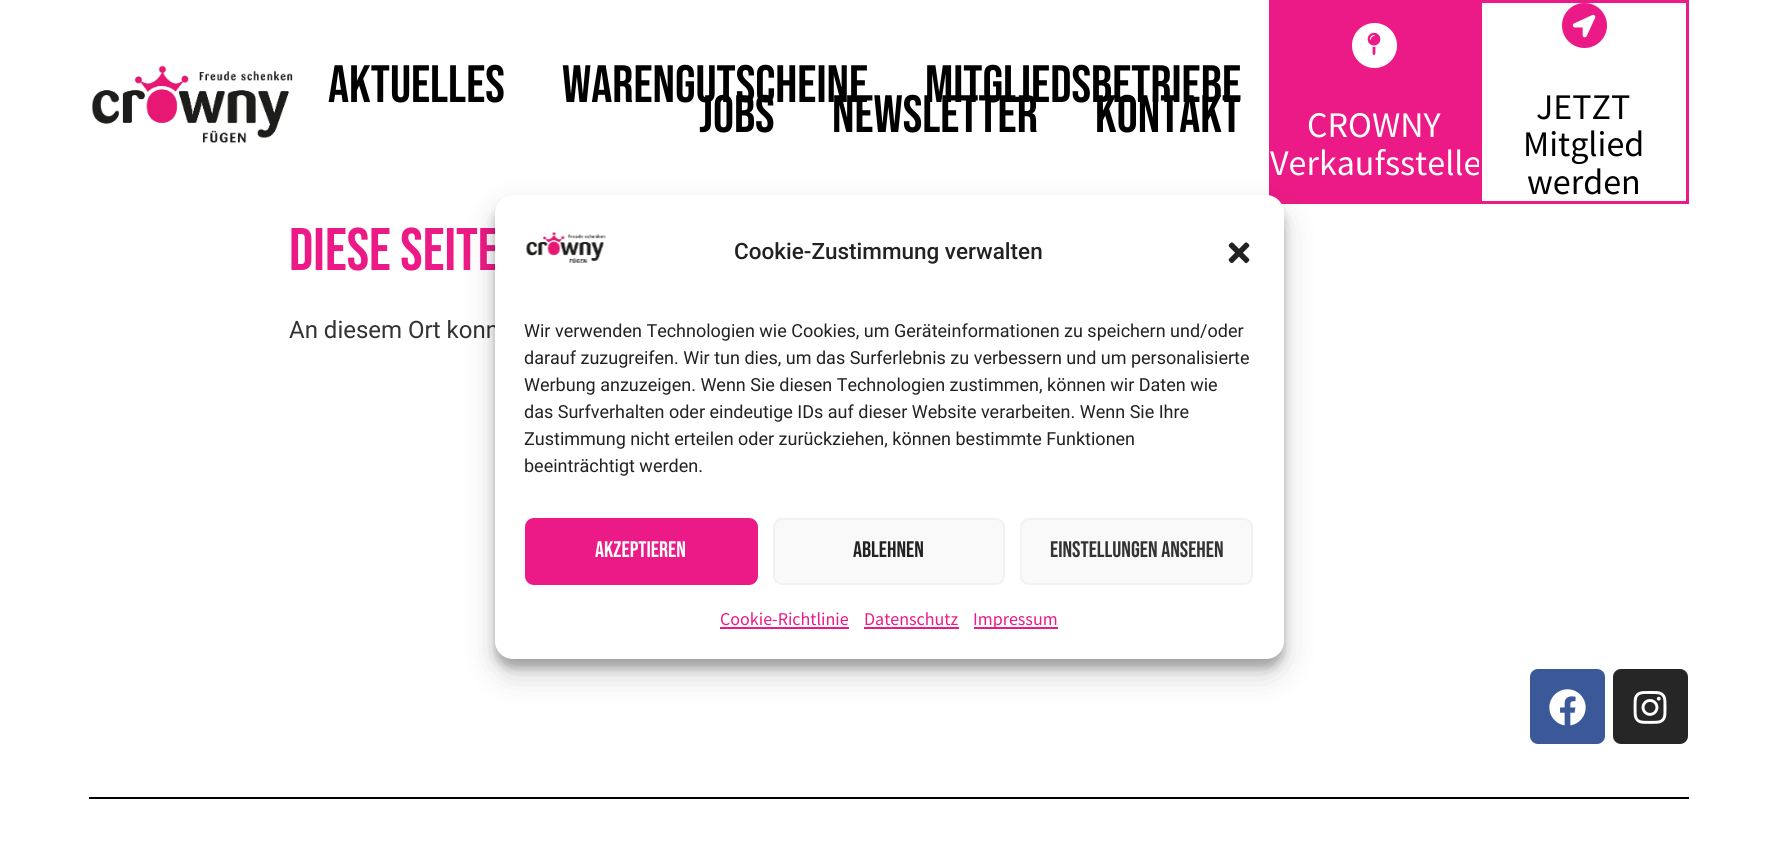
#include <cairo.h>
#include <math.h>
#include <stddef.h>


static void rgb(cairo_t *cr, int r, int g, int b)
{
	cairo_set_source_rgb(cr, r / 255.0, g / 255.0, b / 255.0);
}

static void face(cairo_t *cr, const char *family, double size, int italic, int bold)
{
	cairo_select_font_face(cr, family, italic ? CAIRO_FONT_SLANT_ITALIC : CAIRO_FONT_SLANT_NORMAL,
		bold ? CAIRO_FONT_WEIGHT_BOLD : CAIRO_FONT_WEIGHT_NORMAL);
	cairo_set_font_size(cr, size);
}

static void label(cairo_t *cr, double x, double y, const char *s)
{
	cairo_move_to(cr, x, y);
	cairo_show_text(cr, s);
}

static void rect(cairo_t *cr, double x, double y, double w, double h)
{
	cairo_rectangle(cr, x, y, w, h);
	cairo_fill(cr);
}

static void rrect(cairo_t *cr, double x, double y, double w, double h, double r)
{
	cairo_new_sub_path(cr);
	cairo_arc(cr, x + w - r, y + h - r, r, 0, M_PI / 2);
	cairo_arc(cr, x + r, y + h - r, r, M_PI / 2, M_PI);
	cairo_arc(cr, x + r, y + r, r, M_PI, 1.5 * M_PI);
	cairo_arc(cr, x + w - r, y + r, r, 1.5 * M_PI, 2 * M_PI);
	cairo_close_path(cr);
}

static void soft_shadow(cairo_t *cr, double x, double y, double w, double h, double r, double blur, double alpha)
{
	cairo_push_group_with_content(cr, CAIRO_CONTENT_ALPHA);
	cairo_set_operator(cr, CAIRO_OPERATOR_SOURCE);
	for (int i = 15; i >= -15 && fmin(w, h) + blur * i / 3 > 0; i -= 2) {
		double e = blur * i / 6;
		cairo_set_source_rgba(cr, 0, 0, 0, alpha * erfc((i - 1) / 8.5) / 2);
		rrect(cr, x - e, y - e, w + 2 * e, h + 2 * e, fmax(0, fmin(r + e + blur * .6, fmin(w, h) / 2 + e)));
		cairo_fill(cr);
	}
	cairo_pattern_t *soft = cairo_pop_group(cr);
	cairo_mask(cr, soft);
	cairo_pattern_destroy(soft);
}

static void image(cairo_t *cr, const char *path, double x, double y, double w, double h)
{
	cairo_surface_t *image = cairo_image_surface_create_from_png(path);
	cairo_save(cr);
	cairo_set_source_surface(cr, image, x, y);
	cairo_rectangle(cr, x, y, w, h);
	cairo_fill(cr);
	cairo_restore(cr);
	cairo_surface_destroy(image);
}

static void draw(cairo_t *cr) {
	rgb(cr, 255, 255, 255);
	cairo_paint(cr);
	image(cr, "image0.png", 91, 65, 202, 79);
	face(cr, "Bebas Neue", 52.5, 0, 0);
	rgb(cr, 0, 0, 0);
	label(cr, 328, 102, "Aktuelles");
	label(cr, 562, 102, "Warengutscheine");
	label(cr, 925, 102, "Mitgliedsbetriebe");
	label(cr, 699, 132, "Jobs");
	label(cr, 832, 132, "Newsletter");
	label(cr, 1095, 132, "Kontakt");
	rgb(cr, 236, 26, 134);
	rect(cr, 1269, 0, 210, 204);
	rgb(cr, 255, 255, 255);
	cairo_new_path(cr);
	cairo_arc(cr, 1374.5, 45.5, 22.5, 0, 2 * M_PI);
	cairo_fill(cr);
	image(cr, "image1.png", 1367, 32, 14, 24);
	face(cr, "Source Sans Pro", 36, 0, 0);
	label(cr, 1307, 137, "CROWNY");
	label(cr, 1270, 175, "Verkaufsstelle");
	cairo_rectangle(cr, 1480.5, 1.5, 207, 201);
	rgb(cr, 236, 26, 134);
	cairo_set_line_width(cr, 3);
	cairo_stroke(cr);
	cairo_arc(cr, 1584.5, 25.5, 22.5, 0, 2 * M_PI);
	cairo_fill(cr);
	image(cr, "image2.png", 1572, 14, 24, 24);
	rgb(cr, 0, 0, 0);
	label(cr, 1536, 119, "JETZT");
	label(cr, 1523, 156, "Mitglied");
	label(cr, 1527, 194, "werden");
	face(cr, "Bebas Neue", 60, 0, 0);
	rgb(cr, 236, 26, 134);
	label(cr, 289, 270, "Diese Seite");
	face(cr, "Roboto", 24, 0, 0);
	rgb(cr, 51, 51, 51);
	label(cr, 289, 338, "An diesem Ort konn");
	rgb(cr, 0, 0, 0);
	soft_shadow(cr, 495, 204, 789, 464, 18, 4.5, 0.23);
	soft_shadow(cr, 495, 210, 789, 464, 18, 15, 0.19);
	rgb(cr, 255, 255, 255);
	rrect(cr, 495, 195, 789, 464, 18);
	cairo_fill(cr);
	image(cr, "image3.png", 526, 232, 80, 31);
	face(cr, "Roboto Medium", 22.5, 0, 0);
	rgb(cr, 34, 34, 34);
	label(cr, 734, 259, "Cookie-Zustimmung verwalten");
	image(cr, "image4.png", 1228, 242, 22, 21);
	face(cr, "Roboto", 18, 0, 0);
	label(cr, 524, 337, "Wir verwenden Technologien wie Cookies, um Geräteinformationen zu speichern und/oder");
	label(cr, 524, 364, "darauf zuzugreifen. Wir tun dies, um das Surferlebnis zu verbessern und um personalisierte");
	label(cr, 524, 391, "Werbung anzuzeigen. Wenn Sie diesen Technologien zustimmen, können wir Daten wie");
	label(cr, 524, 418, "das Surfverhalten oder eindeutige IDs auf dieser Website verarbeiten. Wenn Sie Ihre");
	label(cr, 524, 445, "Zustimmung nicht erteilen oder zurückziehen, können bestimmte Funktionen");
	label(cr, 524, 472, "beeinträchtigt werden.");
	rgb(cr, 236, 26, 134);
	rrect(cr, 526, 519, 231, 65, 8);
	cairo_fill_preserve(cr);
	cairo_set_line_width(cr, 2);
	cairo_stroke(cr);
	face(cr, "Bebas Neue", 22.5, 0, 0);
	rgb(cr, 255, 255, 255);
	label(cr, 595, 557, "Akzeptieren");
	rgb(cr, 249, 249, 249);
	rrect(cr, 774, 519, 230, 65, 8);
	cairo_fill_preserve(cr);
	rgb(cr, 242, 242, 242);
	cairo_stroke(cr);
	rgb(cr, 34, 34, 34);
	label(cr, 853, 557, "Ablehnen");
	rgb(cr, 249, 249, 249);
	rrect(cr, 1021, 519, 231, 65, 8);
	cairo_fill_preserve(cr);
	rgb(cr, 242, 242, 242);
	cairo_stroke(cr);
	rgb(cr, 51, 51, 51);
	label(cr, 1050, 557, "Einstellungen ansehen");
	face(cr, "Source Sans Pro", 18, 0, 0);
	rgb(cr, 236, 26, 134);
	label(cr, 720, 625, "Cookie-Richtlinie");
	rect(cr, 720, 627, 129, 2);
	label(cr, 864, 625, "Datenschutz");
	rect(cr, 864, 627, 95, 2);
	rect(cr, 974, 627, 84, 2);
	label(cr, 973, 625, "Impressum");
	rgb(cr, 59, 89, 152);
	rrect(cr, 1530, 669, 75, 75, 8);
	cairo_fill(cr);
	image(cr, "image5.png", 1549, 689, 37, 37);
	rgb(cr, 38, 38, 38);
	rrect(cr, 1613, 669, 75, 75, 8);
	cairo_fill(cr);
	image(cr, "image6.png", 1633, 690, 34, 34);
	rgb(cr, 0, 0, 0);
	rect(cr, 89, 797, 1600, 2);
}

int main(void) {
	cairo_surface_t *surface = cairo_image_surface_create(CAIRO_FORMAT_RGB24, 1777, 852);
	cairo_t *cr = cairo_create(surface);
	cairo_font_options_t *options = cairo_font_options_create();
	cairo_font_options_set_hint_metrics(options, CAIRO_HINT_METRICS_OFF);
	cairo_font_options_set_hint_style(options, CAIRO_HINT_STYLE_NONE);
	cairo_set_font_options(cr, options);
	cairo_set_miter_limit(cr, 4);
	draw(cr);
	cairo_surface_write_to_png(surface, "render.png");
	cairo_font_options_destroy(options);
	cairo_destroy(cr);
	cairo_surface_destroy(surface);
	return 0;
}
